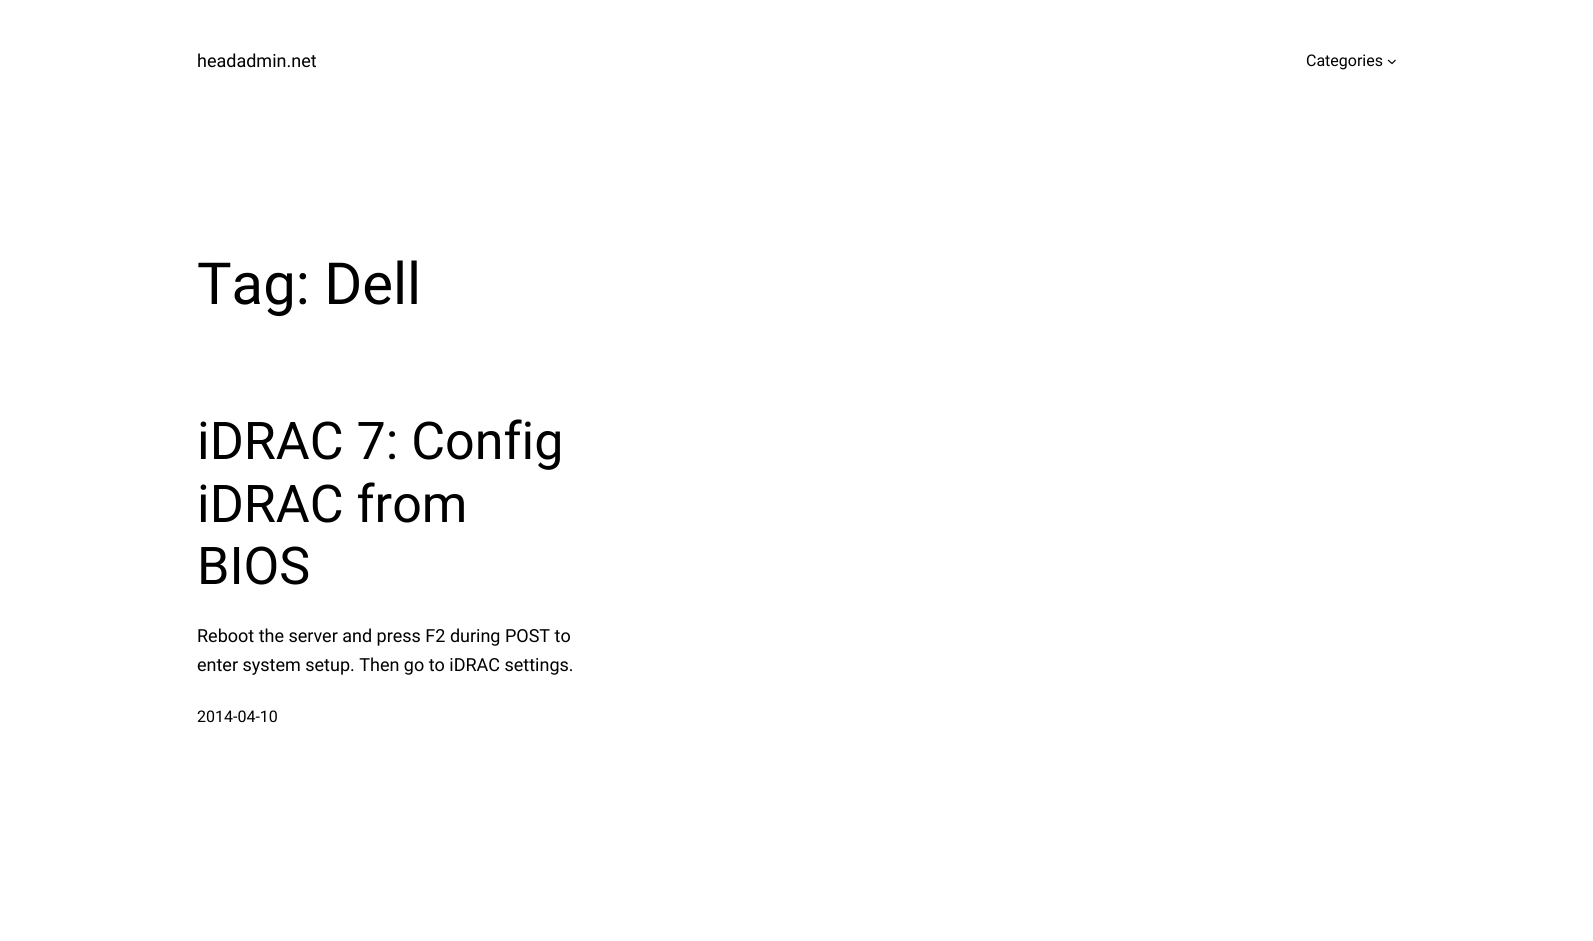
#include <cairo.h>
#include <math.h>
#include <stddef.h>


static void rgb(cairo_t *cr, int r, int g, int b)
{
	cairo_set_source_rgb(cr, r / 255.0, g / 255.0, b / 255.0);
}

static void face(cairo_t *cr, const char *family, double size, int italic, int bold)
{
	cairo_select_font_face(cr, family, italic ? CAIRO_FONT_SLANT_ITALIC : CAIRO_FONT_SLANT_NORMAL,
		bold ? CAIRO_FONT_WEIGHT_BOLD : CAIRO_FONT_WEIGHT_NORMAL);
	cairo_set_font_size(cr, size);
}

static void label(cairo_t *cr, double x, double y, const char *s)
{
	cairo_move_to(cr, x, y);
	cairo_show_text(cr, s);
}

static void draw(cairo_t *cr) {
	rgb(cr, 255, 255, 255);
	cairo_paint(cr);
	face(cr, "Roboto", 18, 0, 0);
	rgb(cr, 0, 0, 0);
	label(cr, 197, 67, "headadmin.net");
	face(cr, "Roboto", 16, 0, 0);
	label(cr, 1306, 66, "Categories");
	cairo_new_path(cr);
	cairo_move_to(cr, 1388, 60);
	cairo_line_to(cr, 1392, 63.5);
	cairo_line_to(cr, 1395.5, 60);
	cairo_set_line_width(cr, 1.2);
	cairo_stroke(cr);
	face(cr, "Roboto", 58, 0, 0);
	label(cr, 197, 304, "Tag: Dell");
	face(cr, "Roboto", 52, 0, 0);
	label(cr, 197, 459, "iDRAC 7: Config");
	label(cr, 197, 522, "iDRAC from");
	label(cr, 197, 584, "BIOS");
	face(cr, "Roboto", 18, 0, 0);
	label(cr, 197, 642, "Reboot the server and press F2 during POST to");
	label(cr, 197, 671, "enter system setup. Then go to iDRAC settings.");
	face(cr, "Roboto", 16, 0, 0);
	label(cr, 197, 722, "2014-04-10");
}

int main(void) {
	cairo_surface_t *surface = cairo_image_surface_create(CAIRO_FORMAT_RGB24, 1593, 941);
	cairo_t *cr = cairo_create(surface);
	cairo_font_options_t *options = cairo_font_options_create();
	cairo_font_options_set_hint_metrics(options, CAIRO_HINT_METRICS_OFF);
	cairo_font_options_set_hint_style(options, CAIRO_HINT_STYLE_NONE);
	cairo_set_font_options(cr, options);
	cairo_set_miter_limit(cr, 4);
	draw(cr);
	cairo_surface_write_to_png(surface, "render.png");
	cairo_font_options_destroy(options);
	cairo_destroy(cr);
	cairo_surface_destroy(surface);
	return 0;
}
